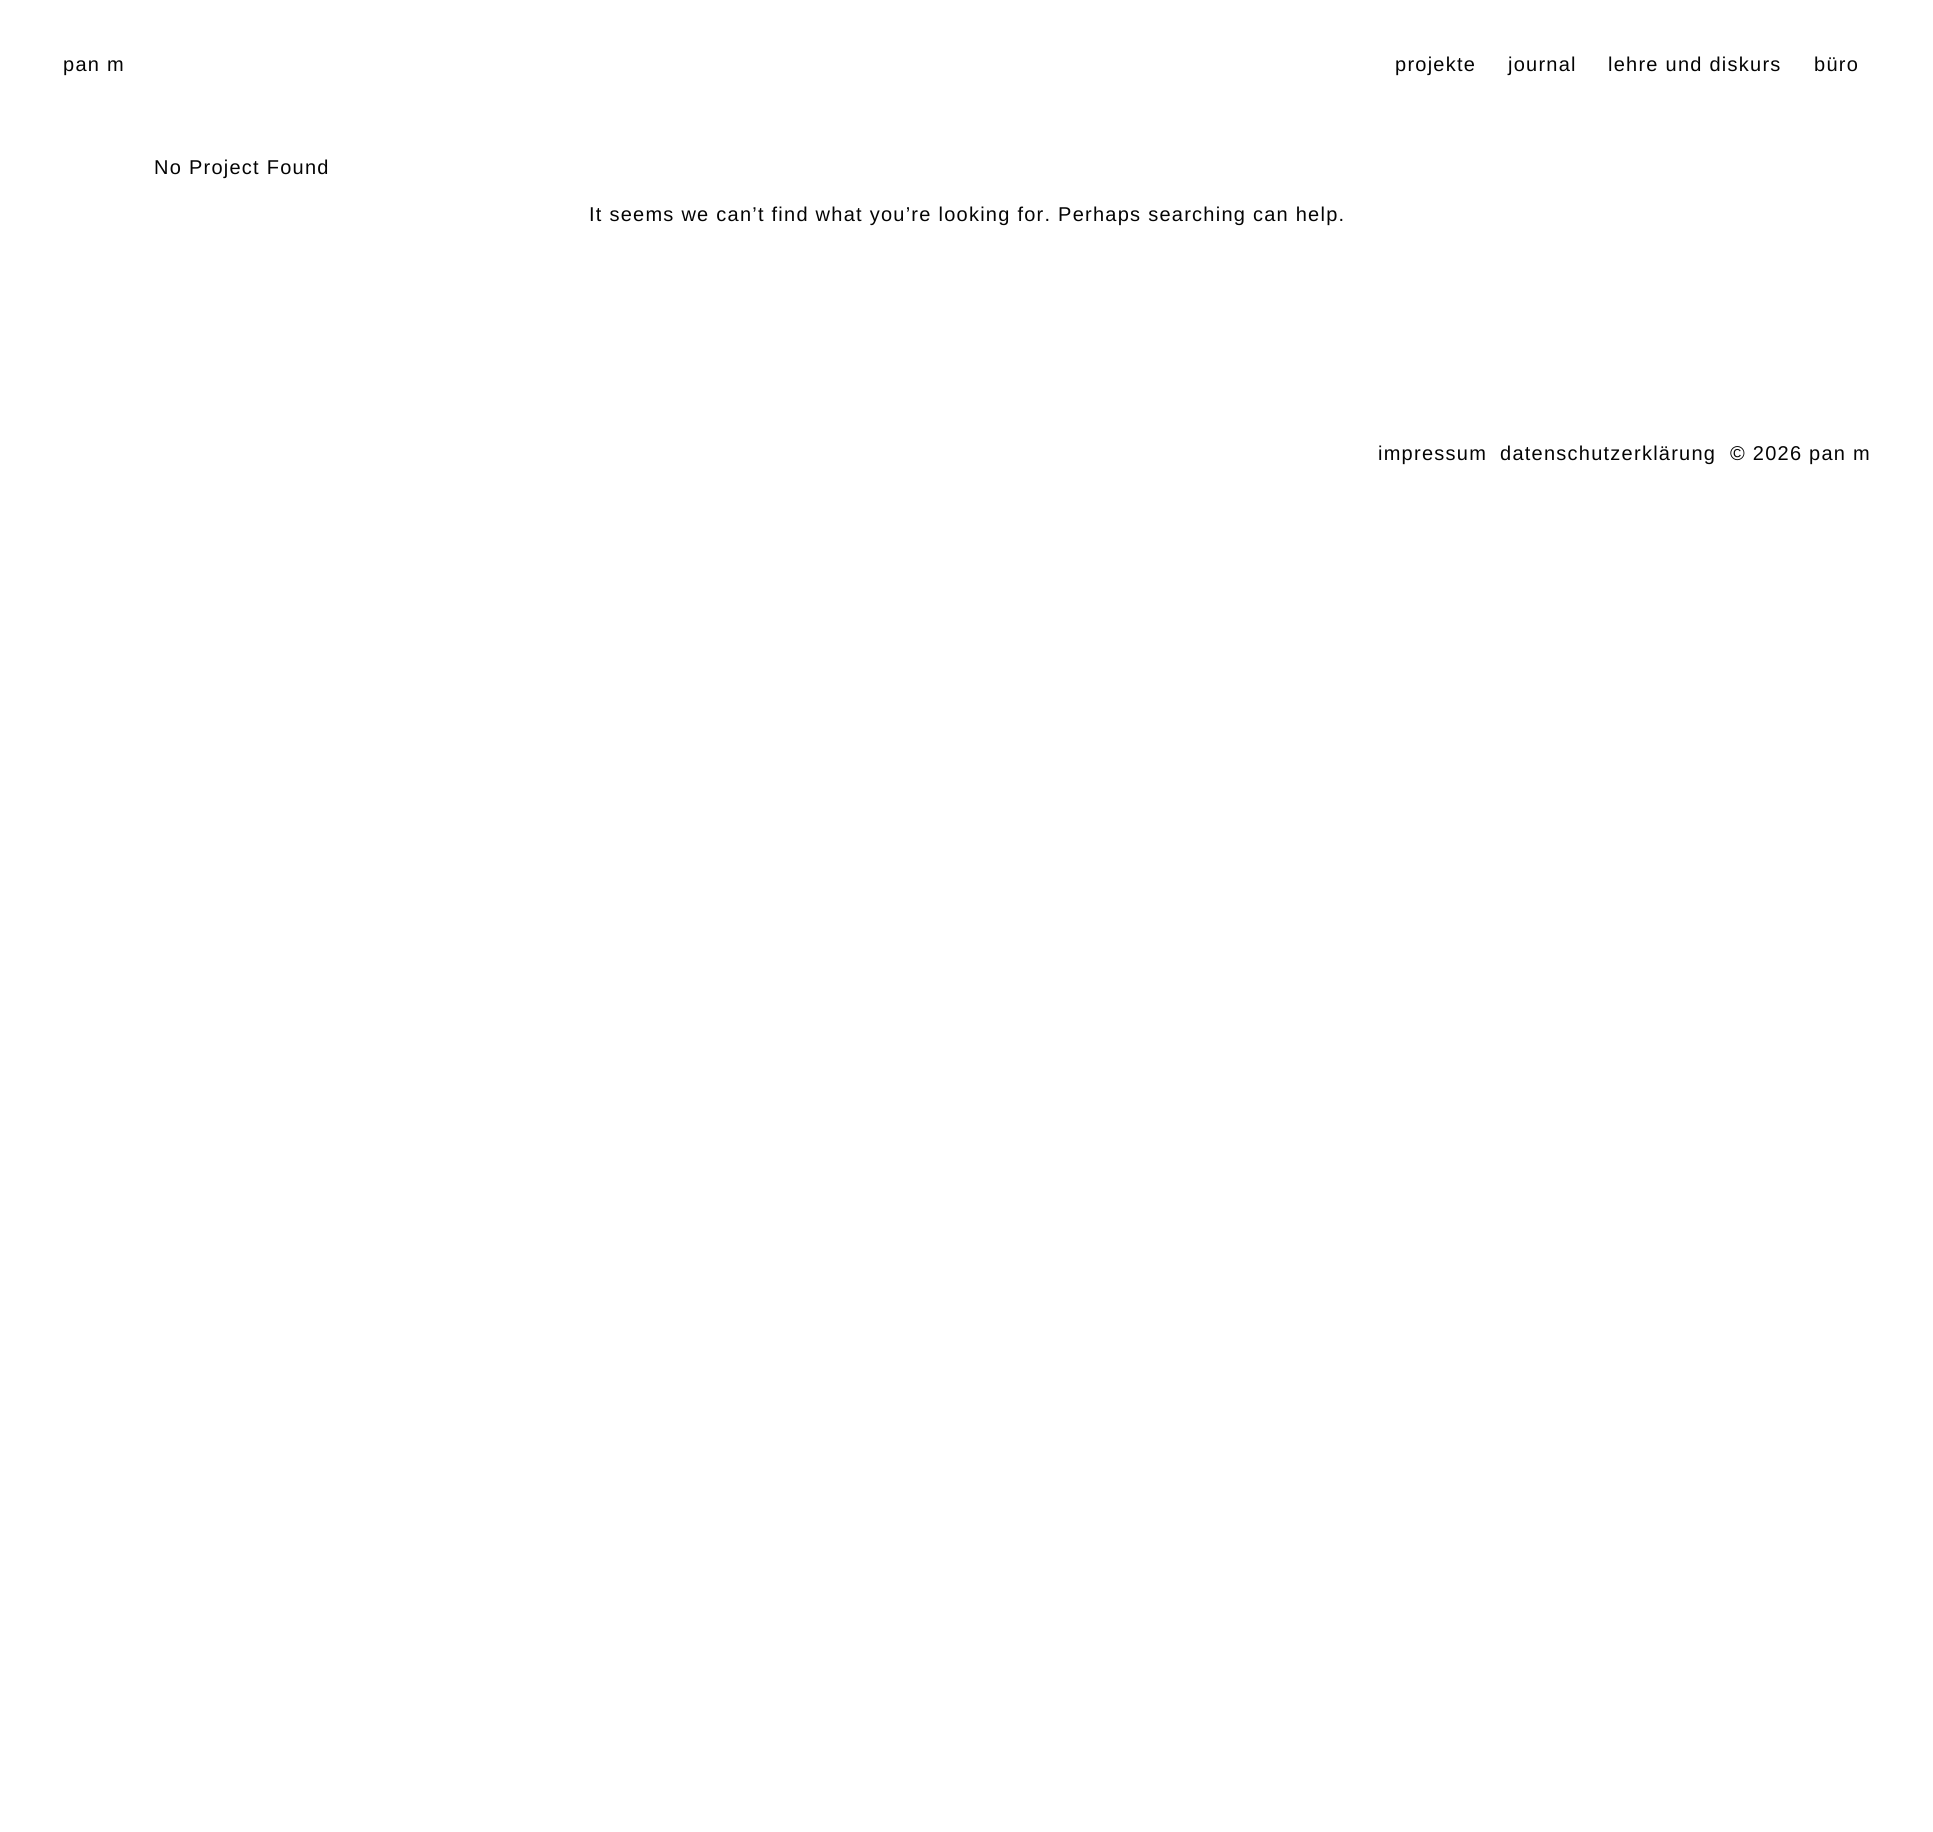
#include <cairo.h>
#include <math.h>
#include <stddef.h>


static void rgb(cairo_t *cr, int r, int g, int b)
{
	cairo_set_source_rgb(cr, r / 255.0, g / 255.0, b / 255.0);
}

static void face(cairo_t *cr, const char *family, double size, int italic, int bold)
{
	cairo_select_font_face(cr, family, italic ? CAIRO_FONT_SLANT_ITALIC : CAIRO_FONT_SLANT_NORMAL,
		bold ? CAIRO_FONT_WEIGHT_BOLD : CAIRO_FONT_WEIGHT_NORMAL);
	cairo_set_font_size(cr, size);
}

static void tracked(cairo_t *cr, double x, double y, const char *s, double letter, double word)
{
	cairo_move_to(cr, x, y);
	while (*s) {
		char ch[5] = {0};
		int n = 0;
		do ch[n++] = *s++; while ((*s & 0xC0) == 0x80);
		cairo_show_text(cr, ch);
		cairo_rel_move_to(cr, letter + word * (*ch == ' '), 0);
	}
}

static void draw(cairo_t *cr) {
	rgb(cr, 255, 255, 255);
	cairo_paint(cr);
	face(cr, "Liberation Sans", 20, 0, 0);
	rgb(cr, 4, 4, 4);
	tracked(cr, 63, 71, "pan m", 1.25, 0);
	tracked(cr, 1395, 71, "projekte", 1.25, 0);
	tracked(cr, 1508, 71, "journal", 1.25, 0);
	tracked(cr, 1608, 71, "lehre und diskurs", 1.25, 0);
	tracked(cr, 1814, 71, "büro", 1.25, 0);
	tracked(cr, 154, 174, "No Project Found", 1.25, 0);
	tracked(cr, 589, 221, "It seems we can’t find what you’re looking for. Perhaps searching can help.", 1.25, 0);
	tracked(cr, 1378, 460, "impressum", 1.25, 0);
	tracked(cr, 1500, 460, "datenschutzerklärung", 1.25, 0);
	tracked(cr, 1730, 460, "© 2026 pan m", 1.25, 0);
}

int main(void) {
	cairo_surface_t *surface = cairo_image_surface_create(CAIRO_FORMAT_RGB24, 1933, 1832);
	cairo_t *cr = cairo_create(surface);
	cairo_font_options_t *options = cairo_font_options_create();
	cairo_font_options_set_hint_metrics(options, CAIRO_HINT_METRICS_OFF);
	cairo_font_options_set_hint_style(options, CAIRO_HINT_STYLE_NONE);
	cairo_set_font_options(cr, options);
	cairo_set_miter_limit(cr, 4);
	draw(cr);
	cairo_surface_write_to_png(surface, "render.png");
	cairo_font_options_destroy(options);
	cairo_destroy(cr);
	cairo_surface_destroy(surface);
	return 0;
}
